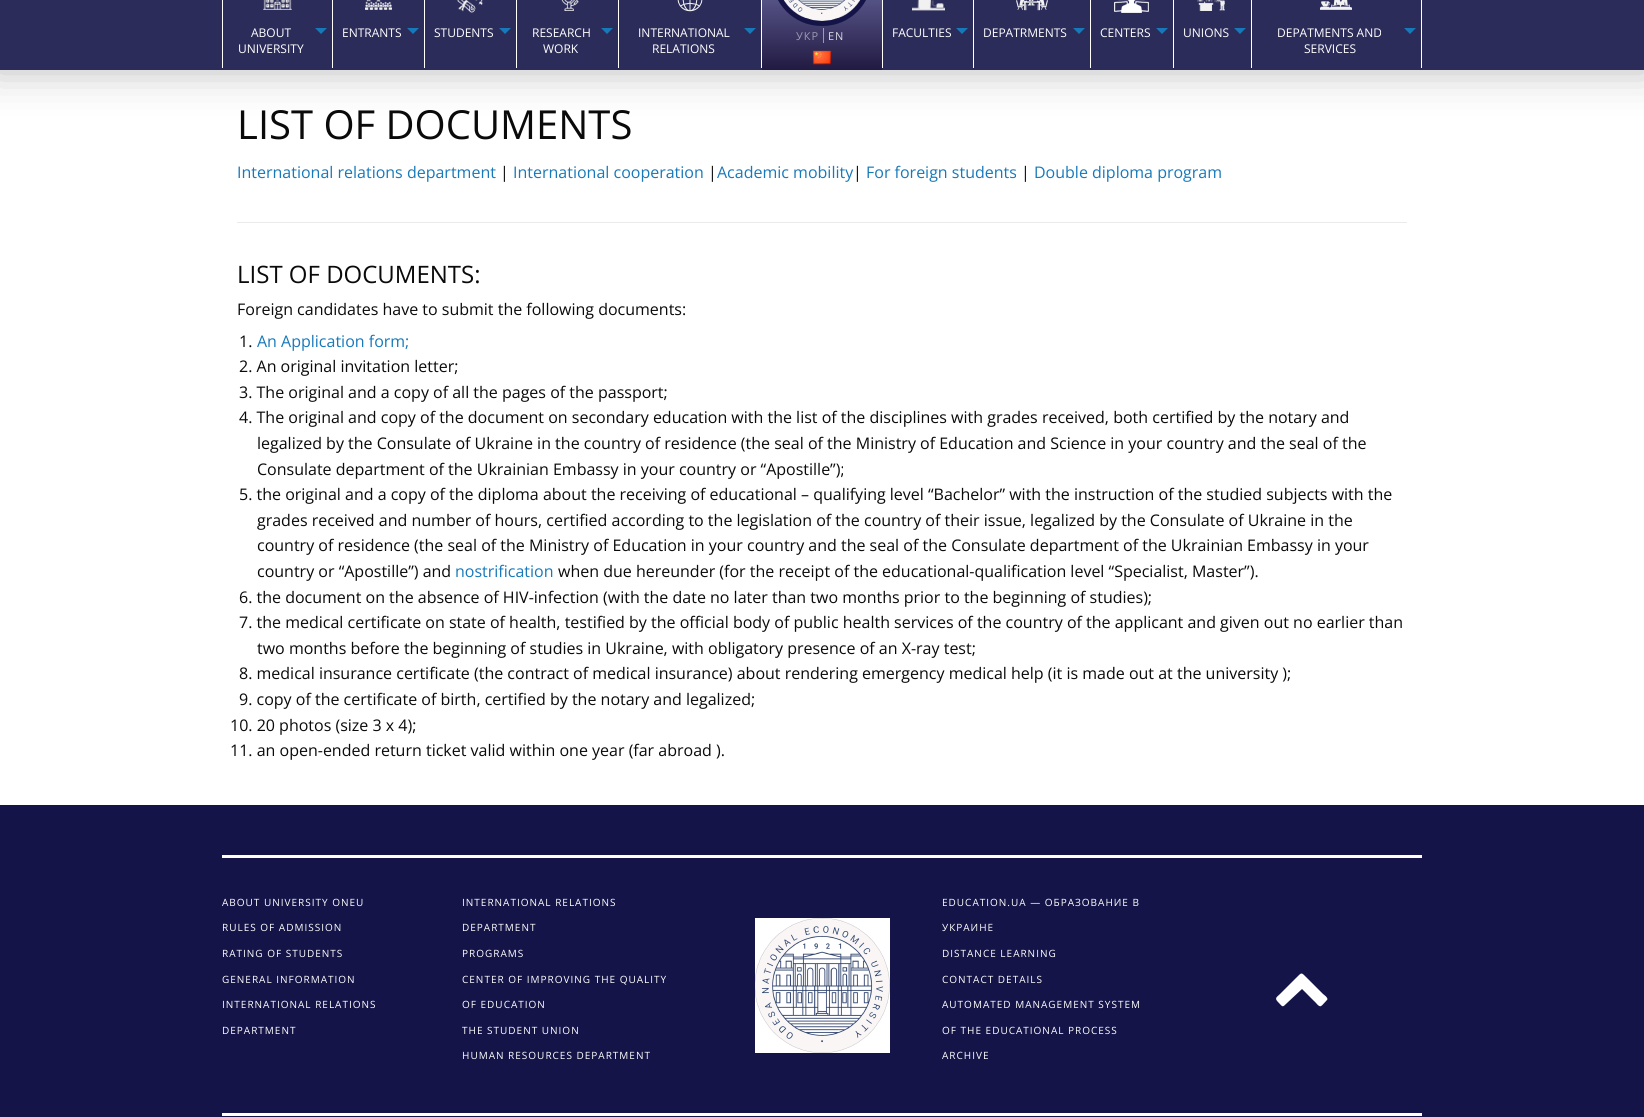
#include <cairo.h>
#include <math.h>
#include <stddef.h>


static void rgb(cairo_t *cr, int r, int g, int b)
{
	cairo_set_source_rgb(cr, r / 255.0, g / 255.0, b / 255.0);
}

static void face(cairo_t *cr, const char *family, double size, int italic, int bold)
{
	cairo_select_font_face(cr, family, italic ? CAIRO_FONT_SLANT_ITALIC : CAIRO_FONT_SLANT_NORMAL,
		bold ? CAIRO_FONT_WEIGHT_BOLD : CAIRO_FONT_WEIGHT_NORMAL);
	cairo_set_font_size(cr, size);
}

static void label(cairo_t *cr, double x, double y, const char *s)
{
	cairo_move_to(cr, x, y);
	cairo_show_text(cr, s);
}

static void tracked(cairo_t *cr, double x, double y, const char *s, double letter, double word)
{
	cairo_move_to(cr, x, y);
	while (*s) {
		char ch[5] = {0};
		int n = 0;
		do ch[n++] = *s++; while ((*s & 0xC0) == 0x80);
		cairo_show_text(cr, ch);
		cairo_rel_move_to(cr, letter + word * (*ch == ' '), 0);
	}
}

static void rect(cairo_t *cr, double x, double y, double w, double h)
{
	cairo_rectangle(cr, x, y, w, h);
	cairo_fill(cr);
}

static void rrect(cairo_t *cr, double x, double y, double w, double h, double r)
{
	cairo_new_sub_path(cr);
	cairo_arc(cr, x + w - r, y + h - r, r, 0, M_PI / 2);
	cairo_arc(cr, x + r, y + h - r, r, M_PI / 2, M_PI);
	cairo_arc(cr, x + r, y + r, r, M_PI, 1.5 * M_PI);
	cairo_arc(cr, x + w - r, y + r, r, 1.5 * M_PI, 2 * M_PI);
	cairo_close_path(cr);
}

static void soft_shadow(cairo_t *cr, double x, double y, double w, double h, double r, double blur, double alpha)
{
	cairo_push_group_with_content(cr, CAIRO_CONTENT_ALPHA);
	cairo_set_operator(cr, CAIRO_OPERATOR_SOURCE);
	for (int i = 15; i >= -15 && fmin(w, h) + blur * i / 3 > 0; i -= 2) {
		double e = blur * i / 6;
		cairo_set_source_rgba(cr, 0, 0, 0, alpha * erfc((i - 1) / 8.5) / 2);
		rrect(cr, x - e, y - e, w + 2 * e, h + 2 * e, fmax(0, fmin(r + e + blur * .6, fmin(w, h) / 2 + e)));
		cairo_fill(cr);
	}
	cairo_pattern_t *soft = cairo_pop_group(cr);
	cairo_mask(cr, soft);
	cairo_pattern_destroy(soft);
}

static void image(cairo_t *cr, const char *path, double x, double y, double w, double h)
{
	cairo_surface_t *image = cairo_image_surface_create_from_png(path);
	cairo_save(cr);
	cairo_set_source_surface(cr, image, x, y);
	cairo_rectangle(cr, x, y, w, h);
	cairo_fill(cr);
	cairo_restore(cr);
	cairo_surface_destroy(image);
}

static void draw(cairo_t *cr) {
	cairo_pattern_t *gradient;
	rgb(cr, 255, 255, 255);
	cairo_paint(cr);
	rgb(cr, 0, 0, 0);
	soft_shadow(cr, -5, -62, 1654, 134, 0, 20.5, 0.26);
	rgb(cr, 44, 44, 90);
	rect(cr, 0, 0, 1644, 70);
	image(cr, "image0.png", 263, 0, 29, 10);
	rgb(cr, 255, 255, 255);
	rect(cr, 222, 0, 1, 68);
	face(cr, "Open Sans", 12, 0, 0);
	label(cr, 251, 37, "ABOUT");
	rgb(cr, 23, 121, 186);
	cairo_new_path(cr);
	cairo_move_to(cr, 315, 28);
	cairo_line_to(cr, 327, 28);
	cairo_line_to(cr, 321, 34);
	cairo_close_path(cr);
	cairo_fill(cr);
	rgb(cr, 255, 255, 255);
	label(cr, 238, 53, "UNIVERSITY");
	image(cr, "image1.png", 365, 0, 27, 10);
	rect(cr, 332, 0, 1, 68);
	label(cr, 342, 37, "ENTRANTS");
	rgb(cr, 23, 121, 186);
	cairo_new_path(cr);
	cairo_move_to(cr, 407, 28);
	cairo_line_to(cr, 419, 28);
	cairo_line_to(cr, 413, 34);
	cairo_close_path(cr);
	cairo_fill(cr);
	image(cr, "image2.png", 457, 0, 26, 13);
	rgb(cr, 255, 255, 255);
	rect(cr, 424, 0, 1, 68);
	label(cr, 434, 37, "STUDENTS");
	rgb(cr, 23, 121, 186);
	cairo_new_path(cr);
	cairo_move_to(cr, 499, 28);
	cairo_line_to(cr, 511, 28);
	cairo_line_to(cr, 505, 34);
	cairo_close_path(cr);
	cairo_fill(cr);
	image(cr, "image3.png", 561, 0, 18, 11);
	rgb(cr, 255, 255, 255);
	rect(cr, 516, 0, 1, 68);
	label(cr, 532, 37, "RESEARCH");
	rgb(cr, 23, 121, 186);
	cairo_new_path(cr);
	cairo_move_to(cr, 601, 28);
	cairo_line_to(cr, 613, 28);
	cairo_line_to(cr, 607, 34);
	cairo_close_path(cr);
	cairo_fill(cr);
	rgb(cr, 255, 255, 255);
	label(cr, 543, 53, "WORK");
	image(cr, "image4.png", 677, 0, 26, 12);
	rect(cr, 761, 0, 1, 68);
	rect(cr, 618, 0, 1, 68);
	label(cr, 638, 37, "INTERNATIONAL");
	rgb(cr, 23, 121, 186);
	cairo_new_path(cr);
	cairo_move_to(cr, 744, 28);
	cairo_line_to(cr, 756, 28);
	cairo_line_to(cr, 750, 34);
	cairo_close_path(cr);
	cairo_fill(cr);
	rgb(cr, 255, 255, 255);
	label(cr, 652, 53, "RELATIONS");
	gradient = cairo_pattern_create_linear(822, -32, 822, 70);
	cairo_pattern_add_color_stop_rgba(gradient, 0, 0.424, 0.42, 0.639, 1);
	cairo_pattern_add_color_stop_rgba(gradient, 1, 0.129, 0.102, 0.259, 1);
	cairo_set_source(cr, gradient);
	cairo_pattern_destroy(gradient);
	rect(cr, 762, 0, 120, 70);
	gradient = cairo_pattern_create_linear(822, -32, 822, 70);
	cairo_pattern_add_color_stop_rgba(gradient, 0, 0.714, 0.71, 0.82, 1);
	cairo_pattern_add_color_stop_rgba(gradient, 1, 0.565, 0.553, 0.631, 1);
	cairo_set_source(cr, gradient);
	cairo_pattern_destroy(gradient);
	rect(cr, 823, 28, 1, 15);
	rgb(cr, 20, 20, 72);
	rrect(cr, 772, -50, 100, 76, 49.5);
	cairo_fill(cr);
	image(cr, "image5.png", 783, 0, 78, 21);
	face(cr, "Open Sans", 11, 0, 0);
	rgb(cr, 157, 154, 177);
	tracked(cr, 796, 40, "УКР", 1, 0);
	rgb(cr, 216, 215, 224);
	tracked(cr, 828, 40, "EN", 1, 0);
	image(cr, "image6.png", 812, 50, 20, 15);
	image(cr, "image7.png", 912, 0, 33, 11);
	rgb(cr, 255, 255, 255);
	rect(cr, 882, 0, 1, 68);
	face(cr, "Open Sans", 12, 0, 0);
	label(cr, 892, 37, "FACULTIES");
	rgb(cr, 23, 121, 186);
	cairo_new_path(cr);
	cairo_move_to(cr, 956, 28);
	cairo_line_to(cr, 968, 28);
	cairo_line_to(cr, 962, 34);
	cairo_close_path(cr);
	cairo_fill(cr);
	image(cr, "image8.png", 1016, 0, 32, 11);
	rgb(cr, 255, 255, 255);
	rect(cr, 973, 0, 1, 68);
	label(cr, 983, 37, "DEPATRMENTS");
	rgb(cr, 23, 121, 186);
	cairo_new_path(cr);
	cairo_move_to(cr, 1073, 28);
	cairo_line_to(cr, 1085, 28);
	cairo_line_to(cr, 1079, 34);
	cairo_close_path(cr);
	cairo_fill(cr);
	image(cr, "image9.png", 1114, 0, 35, 13);
	rgb(cr, 255, 255, 255);
	rect(cr, 1090, 0, 1, 68);
	label(cr, 1100, 37, "CENTERS");
	rgb(cr, 23, 121, 186);
	cairo_new_path(cr);
	cairo_move_to(cr, 1156, 28);
	cairo_line_to(cr, 1168, 28);
	cairo_line_to(cr, 1162, 34);
	cairo_close_path(cr);
	cairo_fill(cr);
	image(cr, "image10.png", 1197, 0, 28, 11);
	rgb(cr, 255, 255, 255);
	rect(cr, 1173, 0, 1, 68);
	label(cr, 1183, 37, "UNIONS");
	rgb(cr, 23, 121, 186);
	cairo_new_path(cr);
	cairo_move_to(cr, 1234, 28);
	cairo_line_to(cr, 1246, 28);
	cairo_line_to(cr, 1240, 34);
	cairo_close_path(cr);
	cairo_fill(cr);
	image(cr, "image11.png", 1320, 0, 32, 10);
	rgb(cr, 255, 255, 255);
	rect(cr, 1421, 0, 1, 68);
	rect(cr, 1251, 0, 1, 68);
	label(cr, 1277, 37, "DEPATMENTS AND");
	rgb(cr, 23, 121, 186);
	cairo_new_path(cr);
	cairo_move_to(cr, 1404, 28);
	cairo_line_to(cr, 1416, 28);
	cairo_line_to(cr, 1410, 34);
	cairo_close_path(cr);
	cairo_fill(cr);
	rgb(cr, 255, 255, 255);
	label(cr, 1304, 53, "SERVICES");
	face(cr, "Open Sans", 40, 0, 0);
	rgb(cr, 10, 10, 10);
	label(cr, 237, 139, "LIST OF DOCUMENTS");
	face(cr, "Open Sans", 16, 0, 0);
	rgb(cr, 23, 121, 186);
	label(cr, 237, 178, "International relations department");
	rgb(cr, 10, 10, 10);
	label(cr, 500, 178, "|");
	rgb(cr, 23, 121, 186);
	label(cr, 513, 178, "International cooperation");
	rgb(cr, 10, 10, 10);
	label(cr, 708, 178, "|");
	rgb(cr, 23, 121, 186);
	label(cr, 717, 178, "Academic mobility");
	rgb(cr, 10, 10, 10);
	label(cr, 853, 178, "|");
	rgb(cr, 23, 121, 186);
	label(cr, 866, 178, "For foreign students");
	rgb(cr, 10, 10, 10);
	label(cr, 1021, 178, "|");
	rgb(cr, 23, 121, 186);
	label(cr, 1034, 178, "Double diploma program");
	rgb(cr, 235, 235, 235);
	rect(cr, 237, 222, 1170, 1);
	face(cr, "Open Sans", 24, 0, 0);
	rgb(cr, 10, 10, 10);
	label(cr, 237, 283, "LIST OF DOCUMENTS:");
	face(cr, "Open Sans", 16, 0, 0);
	label(cr, 237, 315, "Foreign candidates have to submit the following documents:");
	label(cr, 239, 347, "1.");
	rgb(cr, 23, 121, 186);
	label(cr, 257, 347, "An Application form;");
	rgb(cr, 10, 10, 10);
	label(cr, 239, 372, "2. An original invitation letter;");
	label(cr, 239, 398, "3. The original and a copy of all the pages of the passport;");
	label(cr, 239, 423, "4. The original and copy of the document on secondary education with the list of the disciplines with grades received, both certified by the notary and");
	label(cr, 257, 449, "legalized by the Consulate of Ukraine in the country of residence (the seal of the Ministry of Education and Science in your country and the seal of the");
	label(cr, 257, 475, "Consulate department of the Ukrainian Embassy in your country or “Apostille”);");
	label(cr, 239, 500, "5. the original and a copy of the diploma about the receiving of educational – qualifying level “Bachelor” with the instruction of the studied subjects with the");
	label(cr, 257, 526, "grades received and number of hours, certified according to the legislation of the country of their issue, legalized by the Consulate of Ukraine in the");
	label(cr, 257, 551, "country of residence (the seal of the Ministry of Education in your country and the seal of the Consulate department of the Ukrainian Embassy in your");
	label(cr, 257, 577, "country or “Apostille”) and");
	rgb(cr, 23, 121, 186);
	label(cr, 455, 577, "nostrification");
	rgb(cr, 10, 10, 10);
	label(cr, 558, 577, "when due hereunder (for the receipt of the educational-qualification level “Specialist, Master”).");
	label(cr, 239, 603, "6. the document on the absence of HIV-infection (with the date no later than two months prior to the beginning of studies);");
	label(cr, 239, 628, "7. the medical certificate on state of health, testified by the official body of public health services of the country of the applicant and given out no earlier than");
	label(cr, 257, 654, "two months before the beginning of studies in Ukraine, with obligatory presence of an X-ray test;");
	label(cr, 239, 679, "8. medical insurance certificate (the contract of medical insurance) about rendering emergency medical help (it is made out at the university );");
	label(cr, 239, 705, "9. copy of the certificate of birth, certified by the notary and legalized;");
	label(cr, 230, 731, "10. 20 photos (size 3 х 4);");
	label(cr, 230, 756, "11. an open-ended return ticket valid within one year (far abroad ).");
	rgb(cr, 20, 20, 72);
	rect(cr, 0, 805, 1644, 312);
	rgb(cr, 255, 255, 255);
	rect(cr, 222, 855, 1200, 3);
	rect(cr, 222, 1113, 1200, 3);
	face(cr, "Open Sans", 10, 0, 0);
	tracked(cr, 222, 906, "ABOUT UNIVERSITY ONEU", 1, 0);
	tracked(cr, 222, 931, "RULES OF ADMISSION", 1, 0);
	tracked(cr, 222, 957, "RATING OF STUDENTS", 1, 0);
	tracked(cr, 222, 983, "GENERAL INFORMATION", 1, 0);
	tracked(cr, 222, 1008, "INTERNATIONAL RELATIONS", 1, 0);
	tracked(cr, 222, 1034, "DEPARTMENT", 1, 0);
	tracked(cr, 462, 906, "INTERNATIONAL RELATIONS", 1, 0);
	tracked(cr, 462, 931, "DEPARTMENT", 1, 0);
	tracked(cr, 462, 957, "PROGRAMS", 1, 0);
	tracked(cr, 462, 983, "CENTER OF IMPROVING THE QUALITY", 1, 0);
	tracked(cr, 462, 1008, "OF EDUCATION", 1, 0);
	tracked(cr, 462, 1034, "THE STUDENT UNION", 1, 0);
	tracked(cr, 462, 1059, "HUMAN RESOURCES DEPARTMENT", 1, 0);
	image(cr, "image12.png", 755, 918, 135, 135);
	tracked(cr, 942, 906, "EDUCATION.UA — ОБРАЗОВАНИЕ В", 1, 0);
	tracked(cr, 942, 931, "УКРАИНЕ", 1, 0);
	tracked(cr, 942, 957, "DISTANCE LEARNING", 1, 0);
	tracked(cr, 942, 983, "CONTACT DETAILS", 1, 0);
	tracked(cr, 942, 1008, "AUTOMATED MANAGEMENT SYSTEM", 1, 0);
	tracked(cr, 942, 1034, "OF THE EDUCATIONAL PROCESS", 1, 0);
	tracked(cr, 942, 1059, "ARCHIVE", 1, 0);
	cairo_new_path(cr);
	cairo_move_to(cr, 1327, 1000);
	cairo_curve_to(cr, 1321, 1006, 1321, 1009, 1316, 1003);
	cairo_line_to(cr, 1302, 989);
	cairo_line_to(cr, 1287, 1003);
	cairo_curve_to(cr, 1282, 1008, 1283, 1007, 1278, 1002);
	cairo_curve_to(cr, 1274, 998, 1277, 997, 1280, 994);
	cairo_line_to(cr, 1296, 978);
	cairo_curve_to(cr, 1302, 972, 1301, 972, 1307, 978);
	cairo_line_to(cr, 1323, 994);
	cairo_curve_to(cr, 1323, 994, 1329, 998, 1327, 1000);
	cairo_close_path(cr);
	cairo_fill(cr);
}

int main(void) {
	cairo_surface_t *surface = cairo_image_surface_create(CAIRO_FORMAT_RGB24, 1644, 1117);
	cairo_t *cr = cairo_create(surface);
	cairo_font_options_t *options = cairo_font_options_create();
	cairo_font_options_set_hint_metrics(options, CAIRO_HINT_METRICS_OFF);
	cairo_font_options_set_hint_style(options, CAIRO_HINT_STYLE_NONE);
	cairo_set_font_options(cr, options);
	cairo_set_miter_limit(cr, 4);
	draw(cr);
	cairo_surface_write_to_png(surface, "render.png");
	cairo_font_options_destroy(options);
	cairo_destroy(cr);
	cairo_surface_destroy(surface);
	return 0;
}
